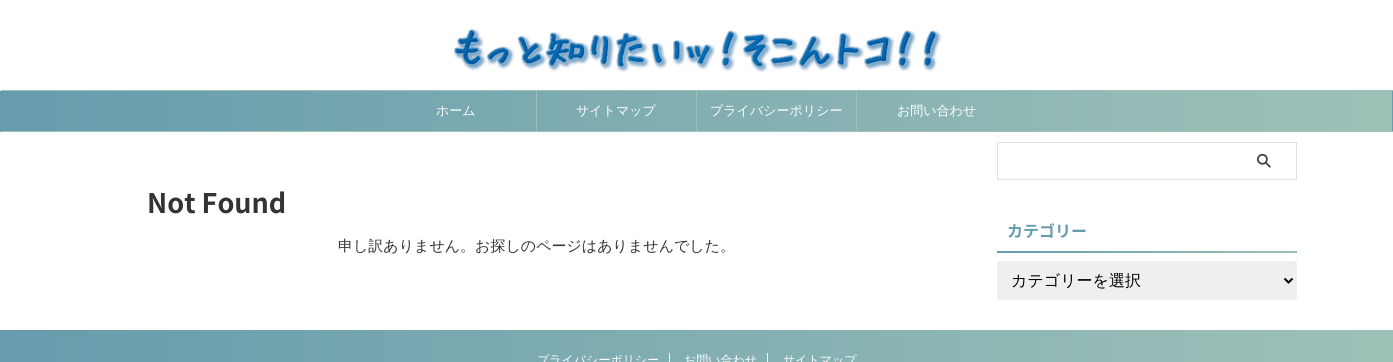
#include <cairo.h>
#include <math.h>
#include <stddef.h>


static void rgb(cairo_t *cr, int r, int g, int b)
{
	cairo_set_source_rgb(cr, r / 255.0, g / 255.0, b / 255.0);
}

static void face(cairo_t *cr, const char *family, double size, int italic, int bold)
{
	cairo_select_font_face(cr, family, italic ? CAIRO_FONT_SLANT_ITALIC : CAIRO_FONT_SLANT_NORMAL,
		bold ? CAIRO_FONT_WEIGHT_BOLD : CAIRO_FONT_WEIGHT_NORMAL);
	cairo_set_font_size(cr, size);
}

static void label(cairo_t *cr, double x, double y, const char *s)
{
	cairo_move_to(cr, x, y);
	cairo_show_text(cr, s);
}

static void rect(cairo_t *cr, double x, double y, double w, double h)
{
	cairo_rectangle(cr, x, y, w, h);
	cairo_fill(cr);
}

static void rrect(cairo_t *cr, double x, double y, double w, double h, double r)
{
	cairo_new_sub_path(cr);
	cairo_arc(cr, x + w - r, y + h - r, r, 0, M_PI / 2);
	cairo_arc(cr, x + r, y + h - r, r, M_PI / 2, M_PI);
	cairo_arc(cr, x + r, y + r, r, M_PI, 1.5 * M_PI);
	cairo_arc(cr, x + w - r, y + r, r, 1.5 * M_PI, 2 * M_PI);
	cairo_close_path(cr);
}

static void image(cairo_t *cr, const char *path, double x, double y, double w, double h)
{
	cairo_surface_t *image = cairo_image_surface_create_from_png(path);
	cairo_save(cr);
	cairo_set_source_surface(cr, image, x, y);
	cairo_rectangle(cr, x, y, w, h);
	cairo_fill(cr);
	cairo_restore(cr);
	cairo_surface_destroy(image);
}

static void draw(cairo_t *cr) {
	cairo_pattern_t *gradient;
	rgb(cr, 255, 255, 255);
	cairo_paint(cr);
	image(cr, "image0.png", 453, 29, 489, 44);
	gradient = cairo_pattern_create_linear(1392, 111, 1, 111);
	cairo_pattern_add_color_stop_rgba(gradient, 0, 0.62, 0.757, 0.718, 1);
	cairo_pattern_add_color_stop_rgba(gradient, 1, 0.4, 0.612, 0.678, 1);
	cairo_set_source(cr, gradient);
	cairo_pattern_destroy(gradient);
	rect(cr, 1, 91, 1391, 40);
	rgb(cr, 158, 193, 183);
	rect(cr, 1, 90, 1392, 1);
	rgb(cr, 102, 156, 173);
	rect(cr, 1392, 91, 1, 41);
	rgb(cr, 158, 193, 183);
	rect(cr, 1, 131, 1392, 1);
	rgb(cr, 102, 156, 173);
	rect(cr, 0, 91, 1, 41);
	rgb(cr, 158, 193, 183);
	rect(cr, 536, 91, 1, 40);
	face(cr, "WenQuanYi Zen Hei Medium", 13, 0, 0);
	rgb(cr, 255, 255, 255);
	label(cr, 436, 115, "ホーム");
	rgb(cr, 158, 193, 183);
	rect(cr, 696, 91, 1, 40);
	rgb(cr, 255, 255, 255);
	label(cr, 576, 115, "サイトマップ");
	rgb(cr, 158, 193, 183);
	rect(cr, 856, 91, 1, 40);
	rgb(cr, 255, 255, 255);
	label(cr, 710, 115, "プライバシーポリシー");
	label(cr, 897, 115, "お問い合わせ");
	face(cr, "Noto Sans JP", 27, 0, 1);
	rgb(cr, 51, 51, 51);
	label(cr, 147, 213, "Not Found");
	face(cr, "WenQuanYi Zen Hei Medium", 15, 0, 0);
	label(cr, 338, 251, "申し訳ありません。お探しのページはありませんでした。");
	cairo_rectangle(cr, 997.5, 142.5, 299, 37);
	rgb(cr, 224, 224, 224);
	cairo_set_line_width(cr, 1);
	cairo_stroke(cr);
	image(cr, "image1.png", 1257, 153, 14, 15);
	face(cr, "Noto Sans JP", 16, 0, 1);
	rgb(cr, 102, 156, 173);
	label(cr, 1007, 237, "カテゴリー");
	gradient = cairo_pattern_create_linear(1297, 252, 997, 252);
	cairo_pattern_add_color_stop_rgba(gradient, 0, 0.62, 0.757, 0.718, 1);
	cairo_pattern_add_color_stop_rgba(gradient, 1, 0.4, 0.612, 0.678, 1);
	cairo_set_source(cr, gradient);
	cairo_pattern_destroy(gradient);
	rect(cr, 997, 251, 300, 2);
	rgb(cr, 239, 239, 239);
	rrect(cr, 997, 261, 300, 39, 2);
	cairo_fill(cr);
	cairo_new_path(cr);
	cairo_move_to(cr, 1284.5, 278.5);
	cairo_line_to(cr, 1288.5, 282.5);
	cairo_line_to(cr, 1292.5, 278.5);
	rgb(cr, 0, 0, 0);
	cairo_set_line_width(cr, 2);
	cairo_stroke(cr);
	face(cr, "WenQuanYi Zen Hei Medium", 16, 0, 0);
	label(cr, 1011, 286, "カテゴリーを選択");
	gradient = cairo_pattern_create_linear(1393, 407, 0, 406);
	cairo_pattern_add_color_stop_rgba(gradient, 0, 0.62, 0.757, 0.718, 1);
	cairo_pattern_add_color_stop_rgba(gradient, 1, 0.4, 0.612, 0.678, 1);
	cairo_set_source(cr, gradient);
	cairo_pattern_destroy(gradient);
	rect(cr, 0, 330, 1393, 32);
	face(cr, "WenQuanYi Zen Hei Medium", 12, 0, 0);
	rgb(cr, 255, 255, 255);
	label(cr, 537, 364, "プライバシーポリシー");
	rect(cr, 669, 353, 1, 9);
	label(cr, 684, 364, "お問い合わせ");
	rect(cr, 767, 353, 1, 9);
	label(cr, 783, 364, "サイトマップ");
}

int main(void) {
	cairo_surface_t *surface = cairo_image_surface_create(CAIRO_FORMAT_RGB24, 1393, 362);
	cairo_t *cr = cairo_create(surface);
	cairo_font_options_t *options = cairo_font_options_create();
	cairo_font_options_set_hint_metrics(options, CAIRO_HINT_METRICS_OFF);
	cairo_font_options_set_hint_style(options, CAIRO_HINT_STYLE_NONE);
	cairo_set_font_options(cr, options);
	cairo_set_miter_limit(cr, 4);
	draw(cr);
	cairo_surface_write_to_png(surface, "render.png");
	cairo_font_options_destroy(options);
	cairo_destroy(cr);
	cairo_surface_destroy(surface);
	return 0;
}
